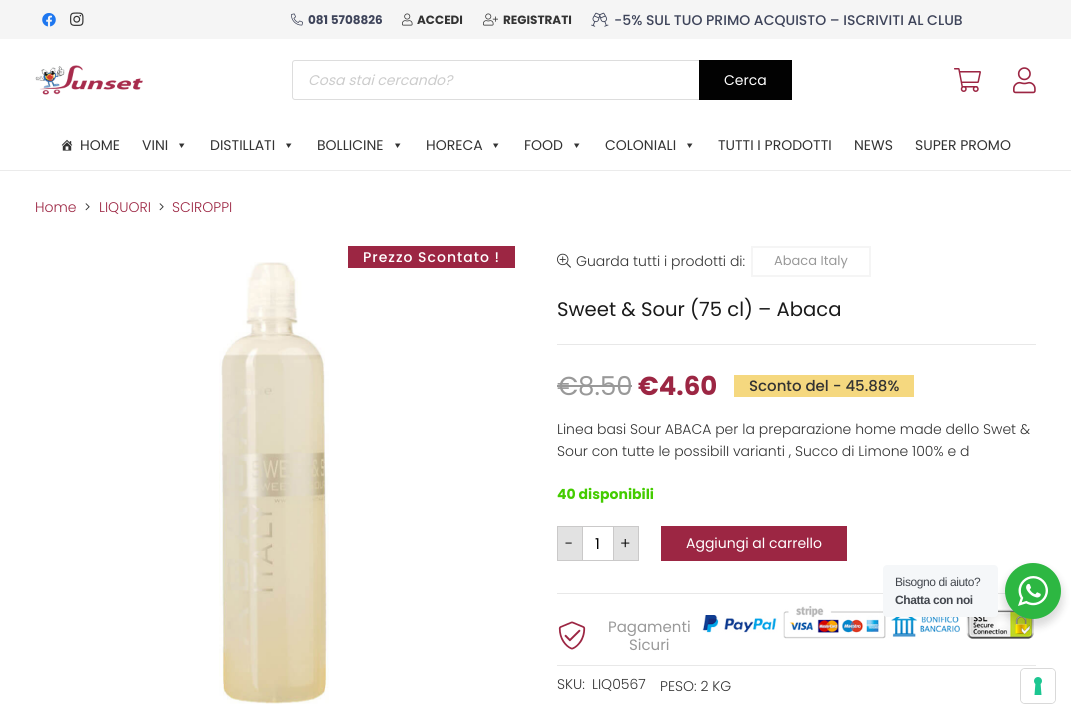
#include <cairo.h>
#include <math.h>
#include <stddef.h>


static void rgb(cairo_t *cr, int r, int g, int b)
{
	cairo_set_source_rgb(cr, r / 255.0, g / 255.0, b / 255.0);
}

static void face(cairo_t *cr, const char *family, double size, int italic, int bold)
{
	cairo_select_font_face(cr, family, italic ? CAIRO_FONT_SLANT_ITALIC : CAIRO_FONT_SLANT_NORMAL,
		bold ? CAIRO_FONT_WEIGHT_BOLD : CAIRO_FONT_WEIGHT_NORMAL);
	cairo_set_font_size(cr, size);
}

static void label(cairo_t *cr, double x, double y, const char *s)
{
	cairo_move_to(cr, x, y);
	cairo_show_text(cr, s);
}

static void tracked(cairo_t *cr, double x, double y, const char *s, double letter, double word)
{
	cairo_move_to(cr, x, y);
	while (*s) {
		char ch[5] = {0};
		int n = 0;
		do ch[n++] = *s++; while ((*s & 0xC0) == 0x80);
		cairo_show_text(cr, ch);
		cairo_rel_move_to(cr, letter + word * (*ch == ' '), 0);
	}
}

static void rect(cairo_t *cr, double x, double y, double w, double h)
{
	cairo_rectangle(cr, x, y, w, h);
	cairo_fill(cr);
}

static void rrect(cairo_t *cr, double x, double y, double w, double h, double r)
{
	cairo_new_sub_path(cr);
	cairo_arc(cr, x + w - r, y + h - r, r, 0, M_PI / 2);
	cairo_arc(cr, x + r, y + h - r, r, M_PI / 2, M_PI);
	cairo_arc(cr, x + r, y + r, r, M_PI, 1.5 * M_PI);
	cairo_arc(cr, x + w - r, y + r, r, 1.5 * M_PI, 2 * M_PI);
	cairo_close_path(cr);
}

static void soft_shadow(cairo_t *cr, double x, double y, double w, double h, double r, double blur, double alpha)
{
	cairo_push_group_with_content(cr, CAIRO_CONTENT_ALPHA);
	cairo_set_operator(cr, CAIRO_OPERATOR_SOURCE);
	for (int i = 15; i >= -15 && fmin(w, h) + blur * i / 3 > 0; i -= 2) {
		double e = blur * i / 6;
		cairo_set_source_rgba(cr, 0, 0, 0, alpha * erfc((i - 1) / 8.5) / 2);
		rrect(cr, x - e, y - e, w + 2 * e, h + 2 * e, fmax(0, fmin(r + e + blur * .6, fmin(w, h) / 2 + e)));
		cairo_fill(cr);
	}
	cairo_pattern_t *soft = cairo_pop_group(cr);
	cairo_mask(cr, soft);
	cairo_pattern_destroy(soft);
}

static void image(cairo_t *cr, const char *path, double x, double y, double w, double h)
{
	cairo_surface_t *image = cairo_image_surface_create_from_png(path);
	cairo_save(cr);
	cairo_set_source_surface(cr, image, x, y);
	cairo_rectangle(cr, x, y, w, h);
	cairo_fill(cr);
	cairo_restore(cr);
	cairo_surface_destroy(image);
}

static void draw(cairo_t *cr) {
	rgb(cr, 255, 255, 255);
	cairo_paint(cr);
	rgb(cr, 245, 245, 245);
	rect(cr, 0, 0, 1071, 39);
	image(cr, "image0.png", 42, 13, 14, 14);
	image(cr, "image1.png", 70, 12, 14, 14);
	image(cr, "image2.png", 291, 13, 12, 13);
	face(cr, "Poppins", 12, 0, 1);
	rgb(cr, 62, 68, 90);
	label(cr, 308, 24, "081 5708826");
	image(cr, "image3.png", 402, 13, 11, 13);
	rgb(cr, 51, 51, 51);
	label(cr, 417, 24, "ACCEDI");
	image(cr, "image4.png", 483, 13, 15, 13);
	label(cr, 503, 24, "REGISTRATI");
	image(cr, "image5.png", 591, 12, 18, 15);
	face(cr, "Poppins Medium", 14, 0, 0);
	rgb(cr, 62, 68, 90);
	label(cr, 614, 25, "-5% SUL TUO PRIMO ACQUISTO – ISCRIVITI AL CLUB");
	image(cr, "image6.png", 35, 65, 108, 30);
	rrect(cr, 292.5, 60.5, 499, 39, 2.5);
	rgb(cr, 221, 221, 221);
	cairo_set_line_width(cr, 1);
	cairo_stroke(cr);
	face(cr, "Poppins", 14, 1, 0);
	rgb(cr, 204, 204, 204);
	label(cr, 308, 85, "Cosa stai cercando?");
	rgb(cr, 2, 2, 2);
	rect(cr, 699, 60, 93, 40);
	face(cr, "Poppins", 14, 0, 0);
	rgb(cr, 255, 255, 255);
	label(cr, 724, 85, "Cerca");
	image(cr, "image7.png", 954, 68, 27, 24);
	image(cr, "image8.png", 1013, 67, 23, 27);
	rgb(cr, 235, 235, 235);
	rect(cr, 0, 170, 1071, 1);
	image(cr, "image9.png", 61, 139, 12, 12);
	rgb(cr, 51, 51, 51);
	label(cr, 80, 150, "HOME");
	label(cr, 142, 150, "VINI");
	cairo_new_path(cr);
	cairo_move_to(cr, 184.5, 143.5);
	cairo_line_to(cr, 181.5, 148);
	cairo_line_to(cr, 179, 143.5);
	cairo_close_path(cr);
	cairo_fill(cr);
	label(cr, 210, 150, "DISTILLATI");
	cairo_new_path(cr);
	cairo_move_to(cr, 291.5, 143.5);
	cairo_line_to(cr, 288.5, 148);
	cairo_line_to(cr, 286, 143.5);
	cairo_close_path(cr);
	cairo_fill(cr);
	label(cr, 317, 150, "BOLLICINE");
	cairo_new_path(cr);
	cairo_move_to(cr, 400.5, 143.5);
	cairo_line_to(cr, 397.5, 148);
	cairo_line_to(cr, 395, 143.5);
	cairo_close_path(cr);
	cairo_fill(cr);
	label(cr, 426, 150, "HORECA");
	cairo_new_path(cr);
	cairo_move_to(cr, 498.5, 143.5);
	cairo_line_to(cr, 495.5, 148);
	cairo_line_to(cr, 493, 143.5);
	cairo_close_path(cr);
	cairo_fill(cr);
	label(cr, 524, 150, "FOOD");
	cairo_new_path(cr);
	cairo_move_to(cr, 579.5, 143.5);
	cairo_line_to(cr, 576.5, 148);
	cairo_line_to(cr, 574, 143.5);
	cairo_close_path(cr);
	cairo_fill(cr);
	label(cr, 605, 150, "COLONIALI");
	cairo_new_path(cr);
	cairo_move_to(cr, 692.5, 143.5);
	cairo_line_to(cr, 689.5, 148);
	cairo_line_to(cr, 687, 143.5);
	cairo_close_path(cr);
	cairo_fill(cr);
	label(cr, 718, 150, "TUTTI I PRODOTTI");
	label(cr, 854, 150, "NEWS");
	label(cr, 915, 150, "SUPER PROMO");
	face(cr, "Poppins Light", 14, 0, 0);
	rgb(cr, 156, 38, 67);
	label(cr, 35, 212, "Home");
	image(cr, "image10.png", 85, 203, 5, 8);
	label(cr, 99, 212, "LIQUORI");
	image(cr, "image10.png", 159, 203, 5, 8);
	label(cr, 172, 212, "SCIROPPI");
	rect(cr, 348, 246, 167, 22);
	face(cr, "Poppins Medium", 14, 0, 0);
	rgb(cr, 255, 255, 255);
	tracked(cr, 363, 262, "Prezzo Scontato !", 1, 0);
	image(cr, "image11.png", 219, 262, 110, 442);
	image(cr, "image12.png", 557, 253, 14, 15);
	face(cr, "Poppins Light", 14, 0, 0);
	rgb(cr, 51, 51, 51);
	label(cr, 576, 266, "Guarda tutti i prodotti di:");
	cairo_rectangle(cr, 752, 247, 118, 29);
	rgb(cr, 245, 245, 245);
	cairo_set_line_width(cr, 2);
	cairo_stroke(cr);
	face(cr, "Poppins", 13, 0, 0);
	rgb(cr, 153, 153, 153);
	label(cr, 774, 265, "Abaca Italy");
	face(cr, "Poppins", 19.6, 0, 0);
	rgb(cr, 26, 26, 26);
	label(cr, 557, 316, "Sweet & Sour (75 cl) – Abaca");
	rgb(cr, 232, 232, 232);
	rect(cr, 557, 344, 479, 1);
	face(cr, "Poppins", 26, 0, 0);
	rgb(cr, 153, 153, 153);
	label(cr, 557, 395, "€8.50");
	rect(cr, 557, 385, 75, 2);
	face(cr, "Poppins", 26, 0, 1);
	rgb(cr, 156, 38, 67);
	label(cr, 638, 395, "€4.60");
	rgb(cr, 245, 216, 127);
	rect(cr, 734, 375, 180, 22);
	face(cr, "Poppins Medium", 15, 0, 0);
	rgb(cr, 51, 51, 51);
	label(cr, 749, 391, "Sconto del - 45.88%");
	face(cr, "Poppins Light", 14, 0, 0);
	label(cr, 557, 434, "Linea basi Sour ABACA per la preparazione home made dello Swet &");
	label(cr, 557, 456, "Sour con tutte le possibilI varianti , Succo di Limone 100% e d");
	face(cr, "Poppins", 14, 0, 1);
	rgb(cr, 68, 204, 0);
	label(cr, 557, 499, "40 disponibili");
	rgb(cr, 226, 226, 226);
	cairo_rectangle(cr, 557.5, 526.5, 25, 34);
	cairo_fill_preserve(cr);
	rgb(cr, 202, 201, 201);
	cairo_set_line_width(cr, 1);
	cairo_stroke(cr);
	face(cr, "Poppins Light", 16, 0, 0);
	rgb(cr, 0, 0, 0);
	label(cr, 565, 549, "-");
	rgb(cr, 202, 201, 201);
	rect(cr, 583, 526, 30, 1);
	rect(cr, 583, 560, 30, 1);
	face(cr, "Poppins", 15, 0, 0);
	rgb(cr, 0, 0, 0);
	label(cr, 595, 549, "1");
	rgb(cr, 226, 226, 226);
	cairo_rectangle(cr, 613.5, 526.5, 25, 34);
	cairo_fill_preserve(cr);
	rgb(cr, 202, 201, 201);
	cairo_stroke(cr);
	face(cr, "Poppins Light", 16, 0, 0);
	rgb(cr, 0, 0, 0);
	label(cr, 620, 549, "+");
	rgb(cr, 156, 38, 67);
	rect(cr, 661, 526, 186, 35);
	face(cr, "Poppins", 14, 0, 0);
	rgb(cr, 255, 255, 255);
	label(cr, 686, 548, "Aggiungi al carrello");
	rgb(cr, 232, 232, 232);
	rect(cr, 557, 593, 449, 1);
	image(cr, "image13.png", 558, 621, 28, 29);
	face(cr, "Poppins", 15, 0, 0);
	rgb(cr, 153, 153, 153);
	label(cr, 608, 632, "Pagamenti");
	label(cr, 629, 650, "Sicuri");
	image(cr, "image14.png", 702, 606, 332, 33);
	rgb(cr, 232, 232, 232);
	rect(cr, 557, 665, 479, 1);
	face(cr, "Poppins Light", 14, 0, 0);
	rgb(cr, 51, 51, 51);
	label(cr, 557, 689, "SKU:");
	label(cr, 592, 689, "LIQ0567");
	label(cr, 660, 691, "PESO: 2 KG");
	rgb(cr, 0, 0, 0);
	soft_shadow(cr, 1003, 567, 60, 60, 30, 4, 0.14);
	rgb(cr, 245, 247, 249);
	rrect(cr, 883, 565, 115, 52, 4);
	cairo_fill(cr);
	face(cr, "Liberation Sans", 12, 0, 0);
	rgb(cr, 67, 71, 78);
	tracked(cr, 895, 586, "Bisogno di aiuto?", -0.4, 0);
	face(cr, "Liberation Sans", 12, 0, 1);
	tracked(cr, 895, 604, "Chatta con noi", -0.4, 0);
	rgb(cr, 45, 183, 66);
	cairo_new_path(cr);
	cairo_arc(cr, 1033, 591, 28, 0, 2 * M_PI);
	cairo_fill(cr);
	image(cr, "image15.png", 1018, 576, 30, 30);
	rrect(cr, 1020.5, 668.5, 35, 35, 4.5);
	rgb(cr, 217, 217, 217);
	cairo_stroke(cr);
	rgb(cr, 255, 255, 255);
	rrect(cr, 1021, 669, 34, 34, 4);
	cairo_fill(cr);
	image(cr, "image16.png", 1034, 677, 8, 18);
}

int main(void) {
	cairo_surface_t *surface = cairo_image_surface_create(CAIRO_FORMAT_RGB24, 1071, 719);
	cairo_t *cr = cairo_create(surface);
	cairo_font_options_t *options = cairo_font_options_create();
	cairo_font_options_set_hint_metrics(options, CAIRO_HINT_METRICS_OFF);
	cairo_font_options_set_hint_style(options, CAIRO_HINT_STYLE_NONE);
	cairo_set_font_options(cr, options);
	cairo_set_miter_limit(cr, 4);
	draw(cr);
	cairo_surface_write_to_png(surface, "render.png");
	cairo_font_options_destroy(options);
	cairo_destroy(cr);
	cairo_surface_destroy(surface);
	return 0;
}
